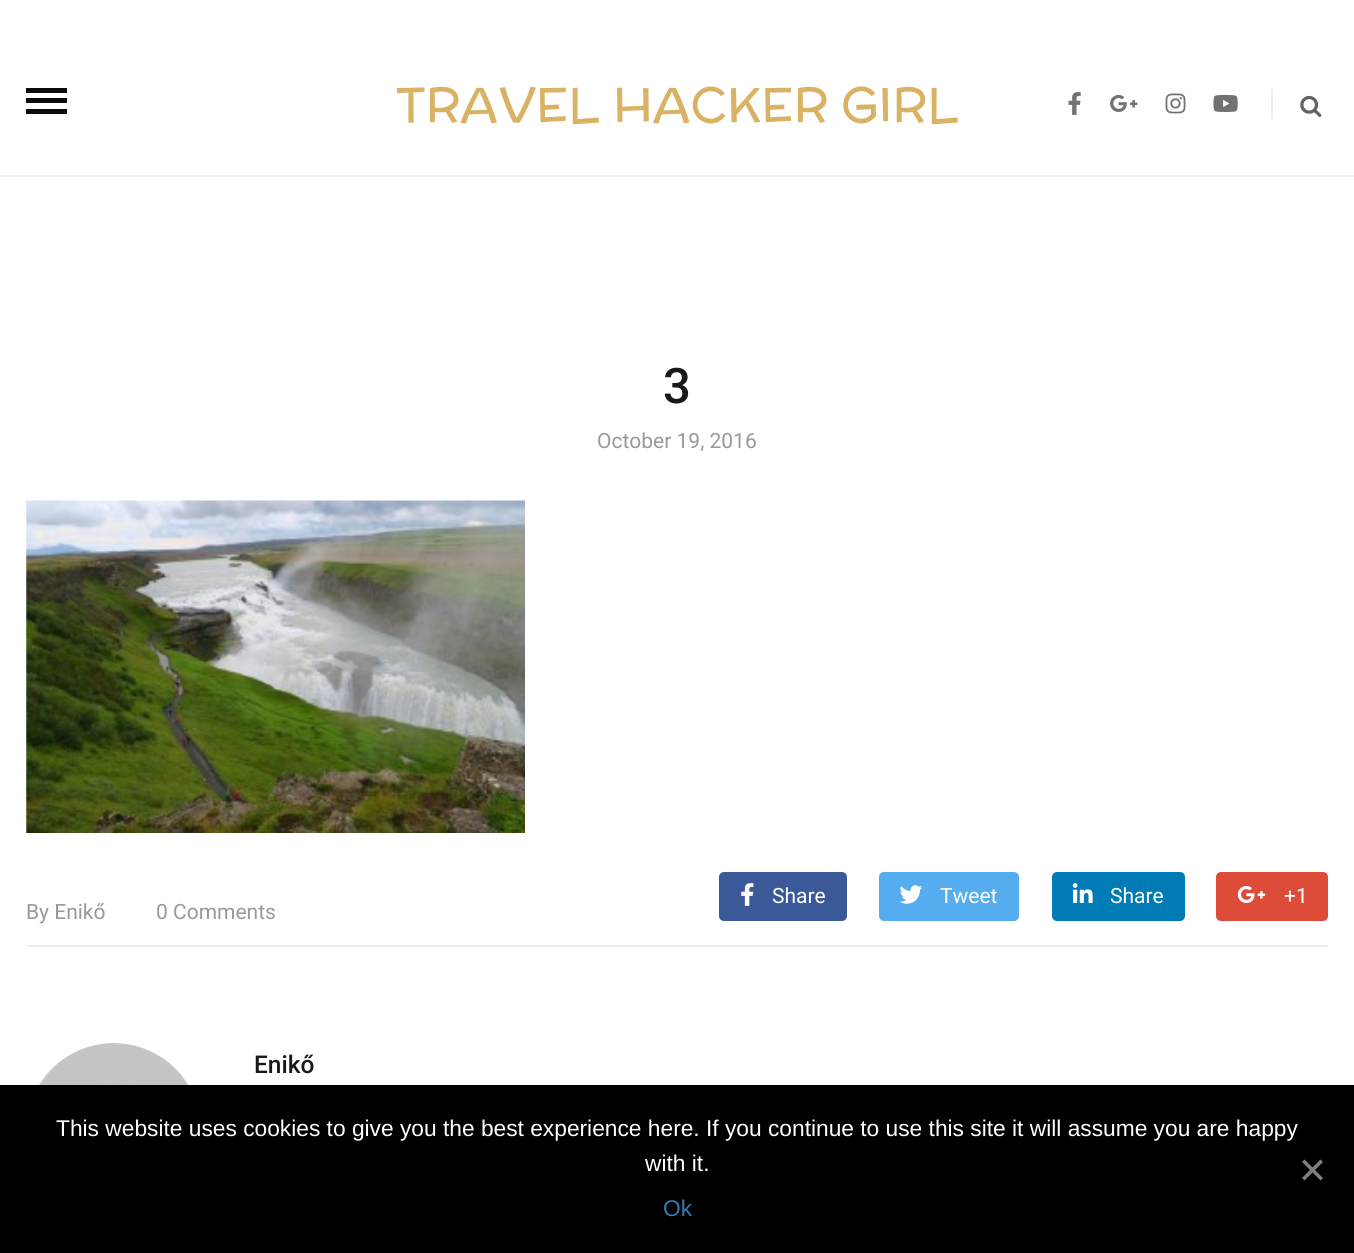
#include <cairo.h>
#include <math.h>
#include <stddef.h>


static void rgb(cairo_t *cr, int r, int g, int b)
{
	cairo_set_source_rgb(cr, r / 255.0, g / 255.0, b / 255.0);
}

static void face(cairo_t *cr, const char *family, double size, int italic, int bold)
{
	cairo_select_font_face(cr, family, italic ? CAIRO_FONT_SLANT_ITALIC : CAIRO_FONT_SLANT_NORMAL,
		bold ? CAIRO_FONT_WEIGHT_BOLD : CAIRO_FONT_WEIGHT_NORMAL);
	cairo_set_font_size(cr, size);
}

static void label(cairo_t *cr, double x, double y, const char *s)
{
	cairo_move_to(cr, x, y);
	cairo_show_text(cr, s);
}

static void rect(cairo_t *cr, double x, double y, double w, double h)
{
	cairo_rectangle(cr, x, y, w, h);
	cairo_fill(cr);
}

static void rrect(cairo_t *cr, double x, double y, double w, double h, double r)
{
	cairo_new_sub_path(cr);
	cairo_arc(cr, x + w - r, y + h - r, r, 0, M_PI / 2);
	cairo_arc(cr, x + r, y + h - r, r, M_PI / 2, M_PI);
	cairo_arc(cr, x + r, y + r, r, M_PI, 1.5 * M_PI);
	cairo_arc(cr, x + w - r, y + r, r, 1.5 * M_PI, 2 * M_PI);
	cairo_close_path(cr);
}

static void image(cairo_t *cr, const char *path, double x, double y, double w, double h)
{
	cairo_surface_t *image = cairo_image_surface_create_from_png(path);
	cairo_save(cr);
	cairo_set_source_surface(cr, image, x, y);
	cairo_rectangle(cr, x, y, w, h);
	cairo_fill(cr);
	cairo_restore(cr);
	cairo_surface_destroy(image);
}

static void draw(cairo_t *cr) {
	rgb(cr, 255, 255, 255);
	cairo_paint(cr);
	rgb(cr, 238, 238, 238);
	rect(cr, 0, 175, 1354, 2);
	rgb(cr, 11, 11, 11);
	rect(cr, 26, 98, 41, 5);
	rect(cr, 26, 88, 41, 5);
	rect(cr, 26, 109, 41, 5);
	face(cr, "McLaren", 49, 0, 0);
	rgb(cr, 218, 178, 100);
	label(cr, 396, 122, "TRAVEL HACKER GIRL");
	rgb(cr, 238, 238, 238);
	rect(cr, 1271, 89, 2, 30);
	image(cr, "image0.png", 1068, 92, 13, 23);
	image(cr, "image1.png", 1110, 94, 28, 18);
	image(cr, "image2.png", 1165, 93, 21, 21);
	image(cr, "image3.png", 1213, 94, 25, 18);
	image(cr, "image4.png", 1300, 95, 22, 22);
	face(cr, "Roboto Medium", 49, 0, 0);
	rgb(cr, 25, 25, 25);
	label(cr, 663, 403, "3");
	face(cr, "Roboto", 21, 0, 0);
	rgb(cr, 153, 153, 153);
	label(cr, 597, 448, "October 19, 2016");
	image(cr, "image5.png", 26, 500, 499, 333);
	rgb(cr, 59, 89, 152);
	rrect(cr, 719, 872, 128, 49, 5);
	cairo_fill(cr);
	image(cr, "image6.png", 741, 883, 13, 23);
	rgb(cr, 255, 255, 255);
	label(cr, 772, 903, "Share");
	rgb(cr, 85, 172, 238);
	rrect(cr, 879, 872, 140, 49, 5);
	cairo_fill(cr);
	image(cr, "image7.png", 899, 885, 24, 19);
	rgb(cr, 255, 255, 255);
	label(cr, 940, 903, "Tweet");
	rgb(cr, 0, 123, 181);
	rrect(cr, 1052, 872, 133, 49, 5);
	cairo_fill(cr);
	image(cr, "image8.png", 1072, 883, 21, 20);
	rgb(cr, 255, 255, 255);
	label(cr, 1110, 903, "Share");
	rgb(cr, 221, 75, 57);
	rrect(cr, 1216, 872, 112, 49, 5);
	cairo_fill(cr);
	image(cr, "image9.png", 1237, 885, 29, 18);
	rgb(cr, 255, 255, 255);
	label(cr, 1284, 903, "+1");
	rgb(cr, 153, 153, 153);
	label(cr, 26, 919, "By Enikő");
	label(cr, 156, 919, "0 Comments");
	rgb(cr, 238, 238, 238);
	rect(cr, 26, 945, 1302, 2);
	image(cr, "image10.png", 39, 1043, 150, 42);
	face(cr, "Roboto Medium", 24.5, 0, 0);
	rgb(cr, 25, 25, 25);
	label(cr, 254, 1073, "Enikő");
	rgb(cr, 0, 0, 0);
	rect(cr, 0, 1085, 1354, 168);
	face(cr, "Liberation Sans", 22.75, 0, 0);
	rgb(cr, 255, 255, 255);
	label(cr, 56, 1136, "This website uses cookies to give you the best experience here. If you continue to use this site it will assume you are happy");
	label(cr, 645, 1171, "with it.");
	rgb(cr, 128, 128, 128);
	cairo_new_path(cr);
	cairo_move_to(cr, 1320.5, 1159.5);
	cairo_line_to(cr, 1323, 1162);
	cairo_line_to(cr, 1304.5, 1180.5);
	cairo_line_to(cr, 1302, 1178);
	cairo_close_path(cr);
	cairo_fill(cr);
	cairo_new_path(cr);
	cairo_move_to(cr, 1302, 1162);
	cairo_line_to(cr, 1304.5, 1159.5);
	cairo_line_to(cr, 1323, 1178);
	cairo_line_to(cr, 1320.5, 1180.5);
	cairo_close_path(cr);
	cairo_fill(cr);
	rgb(cr, 51, 122, 183);
	label(cr, 663, 1216, "Ok");
}

int main(void) {
	cairo_surface_t *surface = cairo_image_surface_create(CAIRO_FORMAT_RGB24, 1354, 1253);
	cairo_t *cr = cairo_create(surface);
	cairo_font_options_t *options = cairo_font_options_create();
	cairo_font_options_set_hint_metrics(options, CAIRO_HINT_METRICS_OFF);
	cairo_font_options_set_hint_style(options, CAIRO_HINT_STYLE_NONE);
	cairo_set_font_options(cr, options);
	cairo_set_miter_limit(cr, 4);
	draw(cr);
	cairo_surface_write_to_png(surface, "render.png");
	cairo_font_options_destroy(options);
	cairo_destroy(cr);
	cairo_surface_destroy(surface);
	return 0;
}
